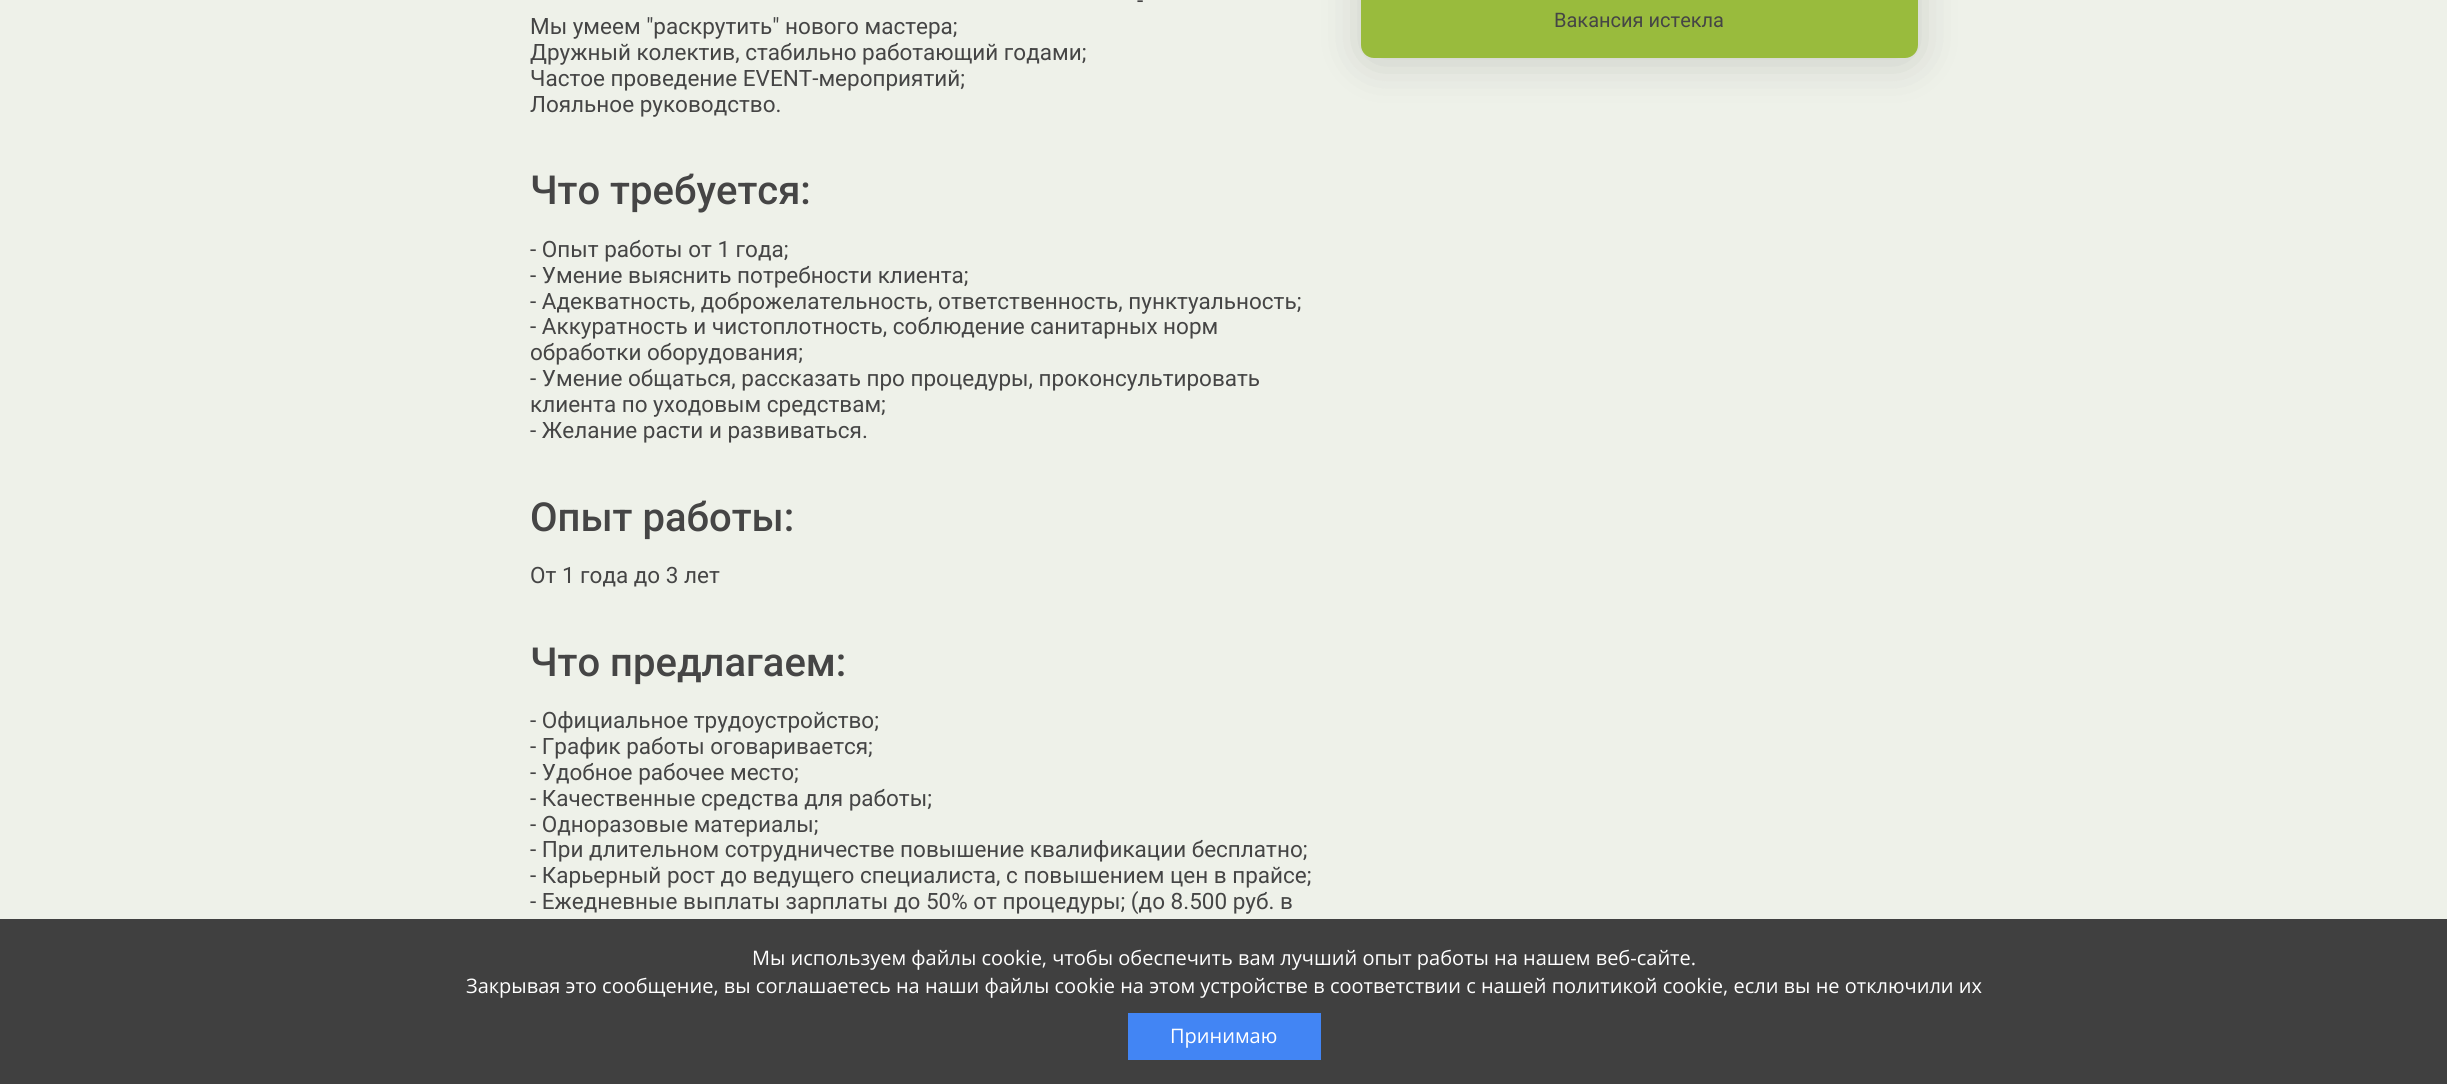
#include <cairo.h>
#include <math.h>
#include <stddef.h>


static void rgb(cairo_t *cr, int r, int g, int b)
{
	cairo_set_source_rgb(cr, r / 255.0, g / 255.0, b / 255.0);
}

static void face(cairo_t *cr, const char *family, double size, int italic, int bold)
{
	cairo_select_font_face(cr, family, italic ? CAIRO_FONT_SLANT_ITALIC : CAIRO_FONT_SLANT_NORMAL,
		bold ? CAIRO_FONT_WEIGHT_BOLD : CAIRO_FONT_WEIGHT_NORMAL);
	cairo_set_font_size(cr, size);
}

static void label(cairo_t *cr, double x, double y, const char *s)
{
	cairo_move_to(cr, x, y);
	cairo_show_text(cr, s);
}

static void rect(cairo_t *cr, double x, double y, double w, double h)
{
	cairo_rectangle(cr, x, y, w, h);
	cairo_fill(cr);
}

static void rrect(cairo_t *cr, double x, double y, double w, double h, double r)
{
	cairo_new_sub_path(cr);
	cairo_arc(cr, x + w - r, y + h - r, r, 0, M_PI / 2);
	cairo_arc(cr, x + r, y + h - r, r, M_PI / 2, M_PI);
	cairo_arc(cr, x + r, y + r, r, M_PI, 1.5 * M_PI);
	cairo_arc(cr, x + w - r, y + r, r, 1.5 * M_PI, 2 * M_PI);
	cairo_close_path(cr);
}

static void soft_shadow(cairo_t *cr, double x, double y, double w, double h, double r, double blur, double alpha)
{
	cairo_push_group_with_content(cr, CAIRO_CONTENT_ALPHA);
	cairo_set_operator(cr, CAIRO_OPERATOR_SOURCE);
	for (int i = 15; i >= -15 && fmin(w, h) + blur * i / 3 > 0; i -= 2) {
		double e = blur * i / 6;
		cairo_set_source_rgba(cr, 0, 0, 0, alpha * erfc((i - 1) / 8.5) / 2);
		rrect(cr, x - e, y - e, w + 2 * e, h + 2 * e, fmax(0, fmin(r + e + blur * .6, fmin(w, h) / 2 + e)));
		cairo_fill(cr);
	}
	cairo_pattern_t *soft = cairo_pop_group(cr);
	cairo_mask(cr, soft);
	cairo_pattern_destroy(soft);
}

static void draw(cairo_t *cr) {
	rgb(cr, 238, 241, 233);
	cairo_paint(cr);
	face(cr, "Roboto", 22.5, 0, 0);
	rgb(cr, 69, 69, 69);
	label(cr, 1137, 8, "-");
	label(cr, 530, 34, "Мы умеем \"раскрутить\" нового мастера;");
	label(cr, 530, 60, "Дружный колектив, стабильно работающий годами;");
	label(cr, 530, 86, "Частое проведение EVENT-мероприятий;");
	label(cr, 530, 112, "Лояльное руководство.");
	face(cr, "Roboto Medium", 40, 0, 0);
	label(cr, 530, 204, "Что требуется:");
	face(cr, "Roboto", 22.5, 0, 0);
	label(cr, 530, 257, "- Опыт работы от 1 года;");
	label(cr, 530, 283, "- Умение выяснить потребности клиента;");
	label(cr, 530, 309, "- Адекватность, доброжелательность, ответственность, пунктуальность;");
	label(cr, 530, 334, "- Аккуратность и чистоплотность, соблюдение санитарных норм");
	label(cr, 530, 360, "обработки оборудования;");
	label(cr, 530, 386, "- Умение общаться, рассказать про процедуры, проконсультировать");
	label(cr, 530, 412, "клиента по уходовым средствам;");
	label(cr, 530, 438, "- Желание расти и развиваться.");
	face(cr, "Roboto Medium", 40, 0, 0);
	label(cr, 530, 531, "Опыт работы:");
	face(cr, "Roboto", 22.5, 0, 0);
	label(cr, 530, 583, "От 1 года до 3 лет");
	face(cr, "Roboto Medium", 40, 0, 0);
	label(cr, 530, 676, "Что предлагаем:");
	face(cr, "Roboto", 22.5, 0, 0);
	label(cr, 530, 728, "- Официальное трудоустройство;");
	label(cr, 530, 754, "- График работы оговаривается;");
	label(cr, 530, 780, "- Удобное рабочее место;");
	label(cr, 530, 806, "- Качественные средства для работы;");
	label(cr, 530, 832, "- Одноразовые материалы;");
	label(cr, 530, 857, "- При длительном сотрудничестве повышение квалификации бесплатно;");
	label(cr, 530, 883, "- Карьерный рост до ведущего специалиста, с повышением цен в прайсе;");
	label(cr, 530, 909, "- Ежедневные выплаты зарплаты до 50% от процедуры; (до 8.500 руб. в");
	rgb(cr, 0, 0, 0);
	soft_shadow(cr, 1361, -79, 557, 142, 13, 22, 0.15);
	rgb(cr, 153, 187, 61);
	rrect(cr, 1361, -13, 557, 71, 13);
	cairo_fill(cr);
	face(cr, "Roboto", 20, 0, 0);
	rgb(cr, 69, 69, 69);
	label(cr, 1554, 27, "Вакансия истекла");
	rgb(cr, 64, 64, 64);
	rect(cr, 0, 919, 2447, 165);
	face(cr, "Open Sans", 20, 0, 0);
	rgb(cr, 255, 255, 255);
	label(cr, 752, 965, "Мы используем файлы cookie, чтобы обеспечить вам лучший опыт работы на нашем веб-сайте.");
	label(cr, 466, 993, "Закрывая это сообщение, вы соглашаетесь на наши файлы cookie на этом устройстве в соответствии с нашей политикой cookie, если вы не отключили их");
	rgb(cr, 66, 133, 244);
	rect(cr, 1128, 1013, 193, 47);
	rgb(cr, 255, 255, 255);
	label(cr, 1170, 1043, "Принимаю");
}

int main(void) {
	cairo_surface_t *surface = cairo_image_surface_create(CAIRO_FORMAT_RGB24, 2447, 1084);
	cairo_t *cr = cairo_create(surface);
	cairo_font_options_t *options = cairo_font_options_create();
	cairo_font_options_set_hint_metrics(options, CAIRO_HINT_METRICS_OFF);
	cairo_font_options_set_hint_style(options, CAIRO_HINT_STYLE_NONE);
	cairo_set_font_options(cr, options);
	cairo_set_miter_limit(cr, 4);
	draw(cr);
	cairo_surface_write_to_png(surface, "render.png");
	cairo_font_options_destroy(options);
	cairo_destroy(cr);
	cairo_surface_destroy(surface);
	return 0;
}
